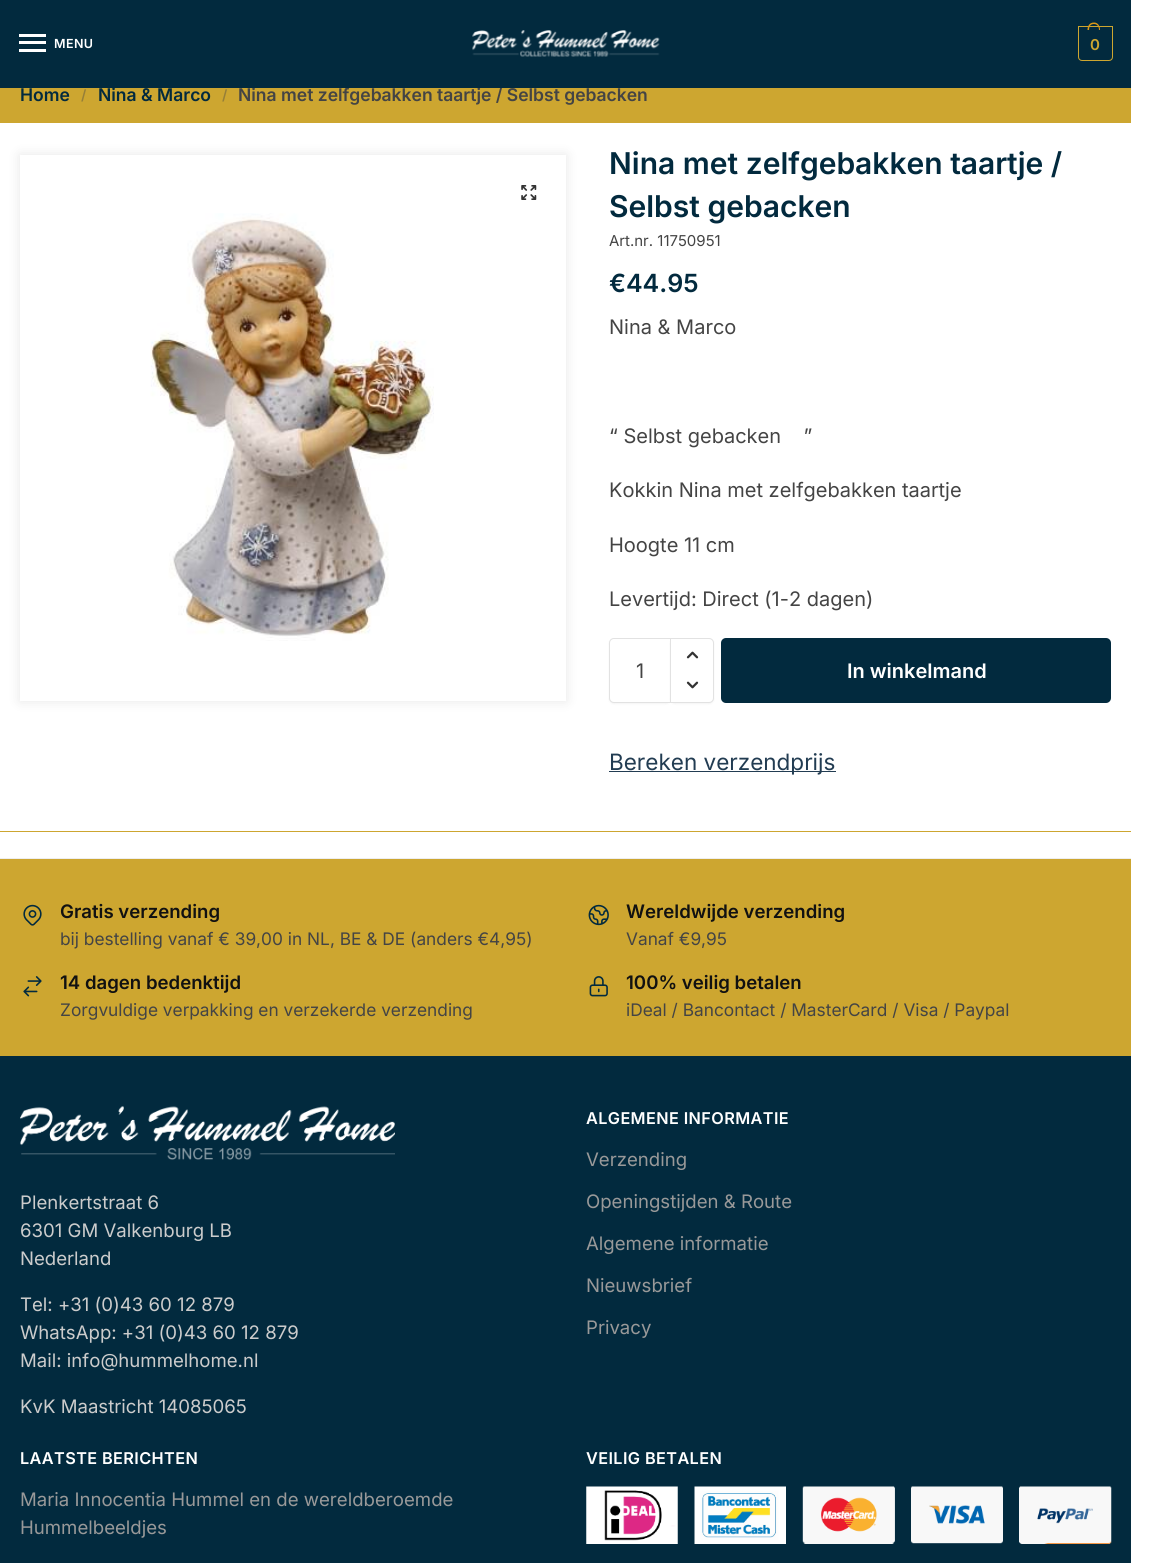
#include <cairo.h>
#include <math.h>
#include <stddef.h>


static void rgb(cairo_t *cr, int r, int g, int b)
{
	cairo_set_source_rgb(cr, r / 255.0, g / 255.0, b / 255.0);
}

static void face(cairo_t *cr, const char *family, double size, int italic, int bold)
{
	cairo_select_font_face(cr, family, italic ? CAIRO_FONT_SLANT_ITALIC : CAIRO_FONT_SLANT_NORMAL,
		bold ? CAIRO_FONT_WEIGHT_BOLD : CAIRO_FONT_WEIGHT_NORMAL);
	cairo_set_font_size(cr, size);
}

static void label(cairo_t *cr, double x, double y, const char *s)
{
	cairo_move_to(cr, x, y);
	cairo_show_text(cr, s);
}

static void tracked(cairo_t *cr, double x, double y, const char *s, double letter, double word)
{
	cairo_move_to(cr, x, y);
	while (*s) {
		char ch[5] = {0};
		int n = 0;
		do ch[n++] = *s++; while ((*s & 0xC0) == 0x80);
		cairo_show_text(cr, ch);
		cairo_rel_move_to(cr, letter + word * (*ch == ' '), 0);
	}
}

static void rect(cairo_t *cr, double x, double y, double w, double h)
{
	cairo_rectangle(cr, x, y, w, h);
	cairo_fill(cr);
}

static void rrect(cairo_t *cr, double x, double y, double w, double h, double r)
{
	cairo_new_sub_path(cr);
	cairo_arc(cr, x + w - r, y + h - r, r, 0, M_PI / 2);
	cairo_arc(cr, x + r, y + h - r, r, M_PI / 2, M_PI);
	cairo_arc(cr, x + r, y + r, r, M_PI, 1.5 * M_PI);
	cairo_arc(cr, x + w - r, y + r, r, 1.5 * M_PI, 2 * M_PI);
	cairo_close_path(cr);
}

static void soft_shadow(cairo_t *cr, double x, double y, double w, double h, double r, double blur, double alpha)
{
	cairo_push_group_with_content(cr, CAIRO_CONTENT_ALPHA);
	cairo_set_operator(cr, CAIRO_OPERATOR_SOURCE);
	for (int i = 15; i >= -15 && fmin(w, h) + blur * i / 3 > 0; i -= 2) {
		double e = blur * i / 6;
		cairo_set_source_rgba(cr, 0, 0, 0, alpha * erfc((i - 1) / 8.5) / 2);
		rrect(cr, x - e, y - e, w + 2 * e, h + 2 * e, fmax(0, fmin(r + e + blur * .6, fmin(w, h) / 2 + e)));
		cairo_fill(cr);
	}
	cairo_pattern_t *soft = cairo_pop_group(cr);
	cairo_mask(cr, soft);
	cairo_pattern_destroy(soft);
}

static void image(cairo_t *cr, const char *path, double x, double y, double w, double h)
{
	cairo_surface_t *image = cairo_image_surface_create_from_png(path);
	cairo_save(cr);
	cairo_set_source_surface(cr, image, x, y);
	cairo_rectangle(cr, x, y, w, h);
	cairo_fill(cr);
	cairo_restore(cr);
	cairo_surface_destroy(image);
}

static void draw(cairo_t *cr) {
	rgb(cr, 255, 255, 255);
	cairo_paint(cr);
	rgb(cr, 205, 166, 48);
	rect(cr, 0, 88, 1131, 35);
	face(cr, "Inter SemiBold", 17.5, 0, 0);
	rgb(cr, 68, 68, 68);
	label(cr, 238, 101, "Nina met zelfgebakken taartje / Selbst gebacken");
	rgb(cr, 2, 42, 62);
	rect(cr, 0, 0, 1131, 88);
	rgb(cr, 255, 255, 255);
	rect(cr, 19, 34, 27, 3);
	rect(cr, 19, 41, 27, 3);
	face(cr, "Inter SemiBold", 12.5, 0, 0);
	tracked(cr, 54, 48, "MENU", 0.4, 0);
	rect(cr, 19, 49, 27, 3);
	image(cr, "image0.png", 472, 30, 188, 27);
	cairo_new_path(cr);
	cairo_move_to(cr, 1078.5, 26.5);
	cairo_line_to(cr, 1112.5, 26.5);
	cairo_line_to(cr, 1112.5, 57);
	cairo_curve_to(cr, 1112.5, 59, 1111, 60.5, 1109, 60.5);
	cairo_line_to(cr, 1082, 60.5);
	cairo_curve_to(cr, 1080, 60.5, 1078.5, 59, 1078.5, 57);
	cairo_close_path(cr);
	rgb(cr, 205, 166, 48);
	cairo_set_line_width(cr, 1);
	cairo_stroke(cr);
	rgb(cr, 220, 152, 20);
	cairo_set_fill_rule(cr, CAIRO_FILL_RULE_EVEN_ODD);
	cairo_new_path(cr);
	cairo_move_to(cr, 1094, 22.5);
	cairo_curve_to(cr, 1098, 22.5, 1100, 26, 1100, 30);
	cairo_line_to(cr, 1087.5, 30);
	cairo_curve_to(cr, 1087.5, 26, 1089.5, 22.5, 1094, 22.5);
	cairo_close_path(cr);
	cairo_move_to(cr, 1094, 24);
	cairo_curve_to(cr, 1097.5, 24, 1099, 27, 1099, 30);
	cairo_line_to(cr, 1089, 30);
	cairo_curve_to(cr, 1089, 27, 1090, 24, 1094, 24);
	cairo_close_path(cr);
	cairo_fill(cr);
	face(cr, "Inter SemiBold", 15, 0, 0);
	rgb(cr, 205, 166, 48);
	tracked(cr, 1090, 50, "0", -1, 0);
	face(cr, "Inter SemiBold", 17.5, 0, 0);
	rgb(cr, 2, 42, 62);
	label(cr, 20, 101, "Home");
	face(cr, "Inter SemiBold", 14, 0, 0);
	rgb(cr, 150, 127, 56);
	label(cr, 81, 100, "/");
	face(cr, "Inter SemiBold", 17.5, 0, 0);
	rgb(cr, 2, 42, 62);
	label(cr, 98, 101, "Nina & Marco");
	face(cr, "Inter SemiBold", 14, 0, 0);
	rgb(cr, 150, 127, 56);
	label(cr, 222, 100, "/");
	rgb(cr, 205, 166, 48);
	rect(cr, 0, 831, 1131, 1);
	cairo_save(cr);
	cairo_new_path(cr);
	cairo_move_to(cr, 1, 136);
	cairo_line_to(cr, 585, 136);
	cairo_line_to(cr, 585, 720);
	cairo_line_to(cr, 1, 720);
	cairo_close_path(cr);
	cairo_move_to(cr, 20, 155);
	cairo_line_to(cr, 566, 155);
	cairo_line_to(cr, 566, 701);
	cairo_line_to(cr, 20, 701);
	cairo_close_path(cr);
	cairo_clip(cr);
	rgb(cr, 0, 0, 0);
	soft_shadow(cr, 20, 155, 546, 546, 0, 6, 0.1);
	cairo_restore(cr);
	image(cr, "image1.png", 521, 185, 16, 15);
	image(cr, "image2.png", 150, 213, 284, 428);
	face(cr, "Inter SemiBold", 30, 0, 0);
	rgb(cr, 2, 42, 62);
	label(cr, 609, 174, "Nina met zelfgebakken taartje /");
	label(cr, 609, 217, "Selbst gebacken");
	face(cr, "Inter", 15, 0, 0);
	rgb(cr, 68, 68, 68);
	label(cr, 609, 246, "Art.nr. 11750951");
	face(cr, "Inter SemiBold", 25, 0, 0);
	rgb(cr, 2, 42, 62);
	label(cr, 609, 292, "€44.95");
	face(cr, "Inter", 20, 0, 0);
	rgb(cr, 68, 68, 68);
	label(cr, 609, 334, "Nina & Marco");
	label(cr, 609, 443, "“ Selbst gebacken    ”");
	label(cr, 609, 497, "Kokkin Nina met zelfgebakken taartje");
	label(cr, 609, 552, "Hoogte 11 cm");
	label(cr, 609, 606, "Levertijd: Direct (1-2 dagen)");
	rgb(cr, 0, 0, 0);
	soft_shadow(cr, 609, 639, 62, 65, 5, 1, 0.05);
	rgb(cr, 255, 255, 255);
	cairo_new_path(cr);
	cairo_move_to(cr, 614, 638.5);
	cairo_line_to(cr, 670.5, 638.5);
	cairo_line_to(cr, 670.5, 702.5);
	cairo_line_to(cr, 614, 702.5);
	cairo_curve_to(cr, 611.5, 702.5, 609.5, 700.5, 609.5, 698);
	cairo_line_to(cr, 609.5, 643);
	cairo_curve_to(cr, 609.5, 640.5, 611.5, 638.5, 614, 638.5);
	cairo_close_path(cr);
	cairo_fill_preserve(cr);
	rgb(cr, 226, 226, 226);
	cairo_stroke(cr);
	rgb(cr, 68, 68, 68);
	label(cr, 636, 678, "1");
	rgb(cr, 0, 0, 0);
	soft_shadow(cr, 670, 639, 44, 65, 5, 1, 0.05);
	rgb(cr, 255, 255, 255);
	cairo_new_path(cr);
	cairo_move_to(cr, 670.5, 638.5);
	cairo_line_to(cr, 709, 638.5);
	cairo_curve_to(cr, 711.5, 638.5, 713.5, 640.5, 713.5, 643);
	cairo_line_to(cr, 713.5, 698);
	cairo_curve_to(cr, 713.5, 700.5, 711.5, 702.5, 709, 702.5);
	cairo_line_to(cr, 670.5, 702.5);
	cairo_close_path(cr);
	cairo_fill_preserve(cr);
	rgb(cr, 226, 226, 226);
	cairo_stroke(cr);
	image(cr, "image3.png", 686, 651, 13, 8);
	image(cr, "image4.png", 686, 681, 13, 8);
	rgb(cr, 2, 42, 62);
	rrect(cr, 721, 638, 390, 65, 5);
	cairo_fill(cr);
	face(cr, "Inter SemiBold", 20, 0, 0);
	rgb(cr, 255, 255, 255);
	label(cr, 847, 678, "In winkelmand");
	rgb(cr, 34, 60, 82);
	rect(cr, 609, 771, 227, 1);
	face(cr, "Inter", 22.5, 0, 0);
	label(cr, 609, 770, "Bereken verzendprijs");
	rgb(cr, 205, 166, 48);
	rect(cr, 0, 859, 1131, 197);
	rgb(cr, 238, 238, 238);
	rect(cr, 0, 858, 1131, 1);
	face(cr, "Inter SemiBold", 18.6, 0, 0);
	rgb(cr, 17, 17, 17);
	label(cr, 60, 918, "Gratis verzending");
	image(cr, "image5.png", 23, 904, 19, 22);
	face(cr, "Inter", 17.3, 0, 0);
	rgb(cr, 68, 68, 68);
	label(cr, 60, 945, "bij bestelling vanaf € 39,00 in NL, BE & DE (anders €4,95)");
	face(cr, "Inter SemiBold", 18.6, 0, 0);
	rgb(cr, 17, 17, 17);
	label(cr, 626, 918, "Wereldwijde verzending");
	image(cr, "image6.png", 588, 904, 21, 22);
	face(cr, "Inter", 17.3, 0, 0);
	rgb(cr, 68, 68, 68);
	label(cr, 626, 945, "Vanaf €9,95");
	face(cr, "Inter SemiBold", 18.6, 0, 0);
	rgb(cr, 17, 17, 17);
	label(cr, 60, 989, "14 dagen bedenktijd");
	image(cr, "image7.png", 23, 976, 19, 21);
	face(cr, "Inter", 17.3, 0, 0);
	rgb(cr, 68, 68, 68);
	label(cr, 60, 1016, "Zorgvuldige verpakking en verzekerde verzending");
	face(cr, "Inter SemiBold", 18.6, 0, 0);
	rgb(cr, 17, 17, 17);
	label(cr, 626, 989, "100% veilig betalen");
	image(cr, "image8.png", 589, 976, 19, 21);
	face(cr, "Inter", 17.3, 0, 0);
	rgb(cr, 68, 68, 68);
	label(cr, 626, 1016, "iDeal / Bancontact / MasterCard / Visa / Paypal");
	rgb(cr, 2, 42, 62);
	rect(cr, 0, 1056, 1131, 507);
	image(cr, "image9.png", 20, 1106, 375, 54);
	face(cr, "Inter", 18.6, 0, 0);
	rgb(cr, 204, 204, 204);
	label(cr, 20, 1209, "Plenkertstraat 6");
	label(cr, 20, 1237, "6301 GM Valkenburg LB");
	label(cr, 20, 1265, "Nederland");
	label(cr, 20, 1311, "Tel: +31 (0)43 60 12 879");
	label(cr, 20, 1339, "WhatsApp: +31 (0)43 60 12 879");
	label(cr, 20, 1367, "Mail: info@hummelhome.nl");
	label(cr, 20, 1413, "KvK Maastricht 14085065");
	face(cr, "Inter SemiBold", 16.25, 0, 0);
	rgb(cr, 255, 255, 255);
	tracked(cr, 586, 1124, "ALGEMENE INFORMATIE", 0.4, 0);
	face(cr, "Inter", 18.6, 0, 0);
	rgb(cr, 153, 153, 153);
	label(cr, 586, 1166, "Verzending");
	label(cr, 586, 1208, "Openingstijden & Route");
	label(cr, 586, 1250, "Algemene informatie");
	label(cr, 586, 1292, "Nieuwsbrief");
	label(cr, 586, 1334, "Privacy");
	face(cr, "Inter SemiBold", 16.25, 0, 0);
	rgb(cr, 255, 255, 255);
	tracked(cr, 20, 1464, "LAATSTE BERICHTEN", 0.4, 0);
	face(cr, "Inter", 18.6, 0, 0);
	rgb(cr, 153, 153, 153);
	label(cr, 20, 1506, "Maria Innocentia Hummel en de wereldberoemde");
	label(cr, 20, 1534, "Hummelbeeldjes");
	face(cr, "Inter SemiBold", 16.25, 0, 0);
	rgb(cr, 255, 255, 255);
	tracked(cr, 586, 1464, "VEILIG BETALEN", 0.4, 0);
	image(cr, "image10.png", 586, 1486, 526, 58);
}

int main(void) {
	cairo_surface_t *surface = cairo_image_surface_create(CAIRO_FORMAT_RGB24, 1150, 1563);
	cairo_t *cr = cairo_create(surface);
	cairo_font_options_t *options = cairo_font_options_create();
	cairo_font_options_set_hint_metrics(options, CAIRO_HINT_METRICS_OFF);
	cairo_font_options_set_hint_style(options, CAIRO_HINT_STYLE_NONE);
	cairo_set_font_options(cr, options);
	cairo_set_miter_limit(cr, 4);
	draw(cr);
	cairo_surface_write_to_png(surface, "render.png");
	cairo_font_options_destroy(options);
	cairo_destroy(cr);
	cairo_surface_destroy(surface);
	return 0;
}
